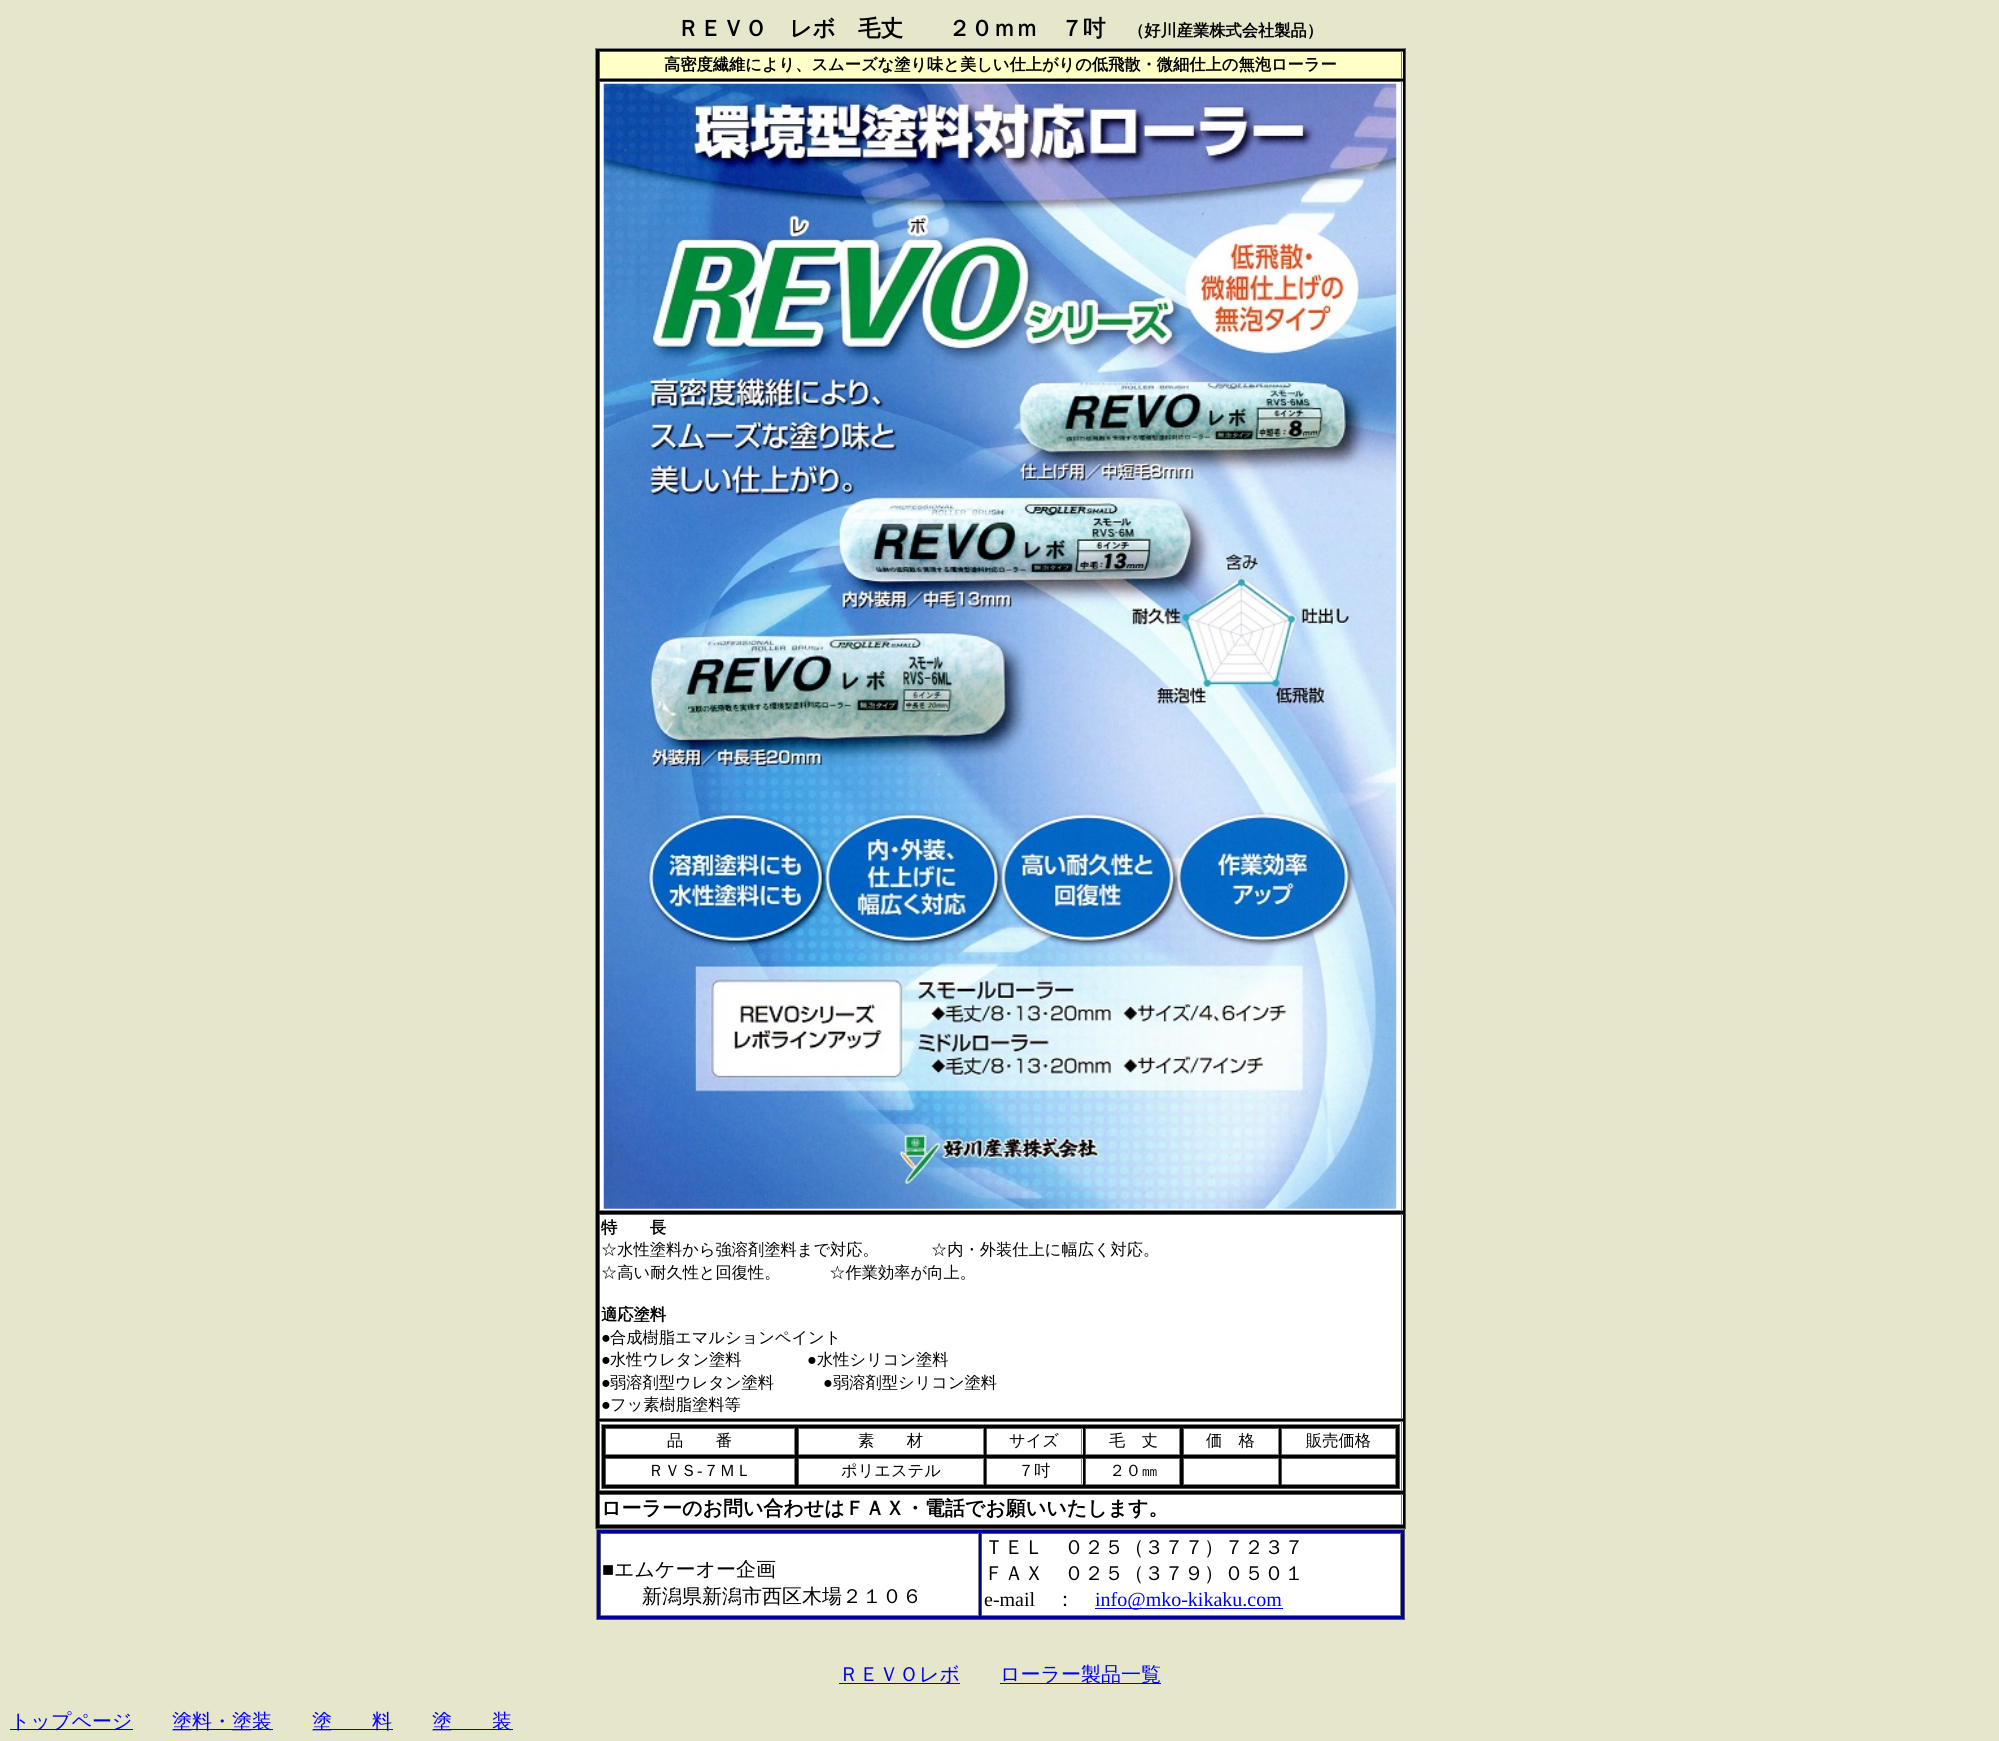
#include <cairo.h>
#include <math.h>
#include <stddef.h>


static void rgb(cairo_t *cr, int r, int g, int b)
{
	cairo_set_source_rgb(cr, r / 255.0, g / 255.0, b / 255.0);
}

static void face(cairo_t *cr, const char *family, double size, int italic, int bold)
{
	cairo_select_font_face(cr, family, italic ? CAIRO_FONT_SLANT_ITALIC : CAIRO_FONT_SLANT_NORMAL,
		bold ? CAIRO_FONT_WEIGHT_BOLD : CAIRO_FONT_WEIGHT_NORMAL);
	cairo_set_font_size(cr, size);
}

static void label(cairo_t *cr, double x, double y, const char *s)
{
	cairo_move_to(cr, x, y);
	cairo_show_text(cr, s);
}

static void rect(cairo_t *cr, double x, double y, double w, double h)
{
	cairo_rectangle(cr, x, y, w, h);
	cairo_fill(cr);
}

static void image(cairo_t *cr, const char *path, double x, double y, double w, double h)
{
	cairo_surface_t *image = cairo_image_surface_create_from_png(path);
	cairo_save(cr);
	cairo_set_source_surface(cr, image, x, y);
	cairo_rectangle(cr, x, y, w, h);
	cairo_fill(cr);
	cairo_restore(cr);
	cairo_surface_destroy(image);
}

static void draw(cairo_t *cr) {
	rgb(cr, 230, 230, 202);
	cairo_paint(cr);
	face(cr, "WenQuanYi Zen Hei", 22.5, 0, 1);
	rgb(cr, 0, 0, 0);
	label(cr, 677, 36, "ＲＥＶＯ　レボ　毛丈　　２０ｍｍ　７吋");
	face(cr, "WenQuanYi Zen Hei", 16.25, 0, 1);
	label(cr, 1128, 36, "（好川産業株式会社製品）");
	rect(cr, 596, 49, 809, 1479);
	rgb(cr, 128, 128, 128);
	rect(cr, 595, 48, 811, 1);
	rgb(cr, 85, 85, 85);
	rect(cr, 1405, 48, 1, 1481);
	rect(cr, 595, 1528, 811, 1);
	rgb(cr, 128, 128, 128);
	rect(cr, 595, 48, 1, 1481);
	rgb(cr, 255, 255, 200);
	rect(cr, 600, 52, 803, 26);
	rgb(cr, 85, 85, 85);
	rect(cr, 599, 51, 804, 1);
	rgb(cr, 128, 128, 128);
	rect(cr, 1401, 51, 1, 28);
	rect(cr, 599, 78, 804, 1);
	rgb(cr, 85, 85, 85);
	rect(cr, 599, 51, 1, 28);
	rgb(cr, 0, 0, 0);
	label(cr, 664, 70, "高密度繊維により、スムーズな塗り味と美しい仕上がりの低飛散・微細仕上の無泡ローラー");
	rgb(cr, 255, 255, 255);
	rect(cr, 600, 82, 803, 1128);
	rgb(cr, 85, 85, 85);
	rect(cr, 599, 81, 804, 1);
	rgb(cr, 128, 128, 128);
	rect(cr, 1401, 81, 1, 1130);
	rect(cr, 599, 1210, 804, 1);
	rgb(cr, 85, 85, 85);
	rect(cr, 599, 81, 1, 1130);
	image(cr, "image0.png", 603, 83, 794, 1126);
	rgb(cr, 255, 255, 255);
	rect(cr, 600, 1215, 803, 203);
	rgb(cr, 85, 85, 85);
	rect(cr, 599, 1214, 804, 1);
	rgb(cr, 128, 128, 128);
	rect(cr, 1401, 1214, 1, 205);
	rect(cr, 599, 1418, 804, 1);
	rgb(cr, 85, 85, 85);
	rect(cr, 599, 1214, 1, 205);
	rgb(cr, 0, 0, 0);
	label(cr, 601, 1233, "特　　長");
	face(cr, "WenQuanYi Zen Hei Medium", 16.25, 0, 0);
	label(cr, 601, 1255, "☆水性塗料から強溶剤塗料まで対応。");
	label(cr, 931, 1255, "☆内・外装仕上に幅広く対応。");
	label(cr, 601, 1278, "☆高い耐久性と回復性。　　　☆作業効率が向上。");
	face(cr, "WenQuanYi Zen Hei", 16.25, 0, 1);
	label(cr, 601, 1320, "適応塗料");
	face(cr, "Liberation Serif", 16.25, 0, 0);
	label(cr, 601, 1343, "●");
	face(cr, "WenQuanYi Zen Hei Medium", 16.25, 0, 0);
	label(cr, 610, 1343, "合成樹脂エマルションペイント");
	face(cr, "Liberation Serif", 16.25, 0, 0);
	label(cr, 601, 1365, "●");
	face(cr, "WenQuanYi Zen Hei Medium", 16.25, 0, 0);
	label(cr, 610, 1365, "水性ウレタン塗料");
	face(cr, "Liberation Serif", 16.25, 0, 0);
	label(cr, 807, 1365, "●");
	face(cr, "WenQuanYi Zen Hei Medium", 16.25, 0, 0);
	label(cr, 817, 1365, "水性シリコン塗料");
	face(cr, "Liberation Serif", 16.25, 0, 0);
	label(cr, 601, 1388, "●");
	face(cr, "WenQuanYi Zen Hei Medium", 16.25, 0, 0);
	label(cr, 610, 1388, "弱溶剤型ウレタン塗料");
	face(cr, "Liberation Serif", 16.25, 0, 0);
	label(cr, 823, 1388, "●");
	face(cr, "WenQuanYi Zen Hei Medium", 16.25, 0, 0);
	label(cr, 833, 1388, "弱溶剤型シリコン塗料");
	face(cr, "Liberation Serif", 16.25, 0, 0);
	label(cr, 601, 1410, "●");
	face(cr, "WenQuanYi Zen Hei Medium", 16.25, 0, 0);
	label(cr, 610, 1410, "フッ素樹脂塗料等");
	rgb(cr, 255, 255, 255);
	rect(cr, 600, 1422, 803, 68);
	rgb(cr, 85, 85, 85);
	rect(cr, 599, 1421, 804, 1);
	rgb(cr, 128, 128, 128);
	rect(cr, 1401, 1421, 1, 70);
	rect(cr, 599, 1490, 804, 1);
	rgb(cr, 85, 85, 85);
	rect(cr, 599, 1421, 1, 70);
	rgb(cr, 0, 0, 0);
	rect(cr, 602, 1425, 797, 63);
	rgb(cr, 128, 128, 128);
	rect(cr, 601, 1424, 799, 1);
	rgb(cr, 85, 85, 85);
	rect(cr, 1399, 1424, 1, 65);
	rect(cr, 601, 1488, 799, 1);
	rgb(cr, 128, 128, 128);
	rect(cr, 601, 1424, 1, 65);
	rgb(cr, 255, 255, 255);
	rect(cr, 606, 1429, 188, 25);
	rgb(cr, 85, 85, 85);
	rect(cr, 605, 1428, 190, 1);
	rgb(cr, 128, 128, 128);
	rect(cr, 794, 1428, 1, 27);
	rect(cr, 605, 1454, 190, 1);
	rgb(cr, 85, 85, 85);
	rect(cr, 605, 1428, 1, 27);
	rgb(cr, 0, 0, 0);
	label(cr, 667, 1446, "品　　番");
	rgb(cr, 255, 255, 255);
	rect(cr, 799, 1429, 184, 25);
	rgb(cr, 85, 85, 85);
	rect(cr, 798, 1428, 186, 1);
	rgb(cr, 128, 128, 128);
	rect(cr, 983, 1428, 1, 27);
	rect(cr, 798, 1454, 186, 1);
	rgb(cr, 85, 85, 85);
	rect(cr, 798, 1428, 1, 27);
	rgb(cr, 0, 0, 0);
	label(cr, 858, 1446, "素　　材");
	rgb(cr, 255, 255, 255);
	rect(cr, 987, 1429, 96, 25);
	rgb(cr, 85, 85, 85);
	rect(cr, 986, 1428, 97, 1);
	rgb(cr, 128, 128, 128);
	rect(cr, 1081, 1428, 1, 27);
	rect(cr, 986, 1454, 97, 1);
	rgb(cr, 85, 85, 85);
	rect(cr, 986, 1428, 1, 27);
	rgb(cr, 0, 0, 0);
	label(cr, 1009, 1446, "サイズ");
	rgb(cr, 255, 255, 255);
	rect(cr, 1086, 1429, 93, 25);
	rgb(cr, 85, 85, 85);
	rect(cr, 1085, 1428, 95, 1);
	rgb(cr, 128, 128, 128);
	rect(cr, 1179, 1428, 1, 27);
	rect(cr, 1085, 1454, 95, 1);
	rgb(cr, 85, 85, 85);
	rect(cr, 1085, 1428, 1, 27);
	rgb(cr, 0, 0, 0);
	label(cr, 1109, 1446, "毛　丈");
	rgb(cr, 255, 255, 255);
	rect(cr, 1184, 1429, 94, 25);
	rgb(cr, 85, 85, 85);
	rect(cr, 1183, 1428, 96, 1);
	rgb(cr, 128, 128, 128);
	rect(cr, 1278, 1428, 1, 27);
	rect(cr, 1183, 1454, 96, 1);
	rgb(cr, 85, 85, 85);
	rect(cr, 1183, 1428, 1, 27);
	rgb(cr, 0, 0, 0);
	label(cr, 1206, 1446, "価　格");
	rgb(cr, 255, 255, 255);
	rect(cr, 1282, 1429, 113, 25);
	rgb(cr, 85, 85, 85);
	rect(cr, 1281, 1428, 115, 1);
	rgb(cr, 128, 128, 128);
	rect(cr, 1395, 1428, 1, 27);
	rect(cr, 1281, 1454, 115, 1);
	rgb(cr, 85, 85, 85);
	rect(cr, 1281, 1428, 1, 27);
	rgb(cr, 0, 0, 0);
	label(cr, 1306, 1446, "販売価格");
	rgb(cr, 255, 255, 255);
	rect(cr, 606, 1459, 188, 25);
	rgb(cr, 85, 85, 85);
	rect(cr, 605, 1458, 190, 1);
	rgb(cr, 128, 128, 128);
	rect(cr, 794, 1458, 1, 27);
	rect(cr, 605, 1484, 190, 1);
	rgb(cr, 85, 85, 85);
	rect(cr, 605, 1458, 1, 27);
	rgb(cr, 0, 0, 0);
	label(cr, 648, 1476, "ＲＶＳ");
	face(cr, "Liberation Serif", 16.25, 0, 0);
	label(cr, 697, 1476, "-");
	face(cr, "WenQuanYi Zen Hei Medium", 16.25, 0, 0);
	label(cr, 703, 1476, "７ＭＬ");
	rgb(cr, 255, 255, 255);
	rect(cr, 799, 1459, 184, 25);
	rgb(cr, 85, 85, 85);
	rect(cr, 798, 1458, 186, 1);
	rgb(cr, 128, 128, 128);
	rect(cr, 983, 1458, 1, 27);
	rect(cr, 798, 1484, 186, 1);
	rgb(cr, 85, 85, 85);
	rect(cr, 798, 1458, 1, 27);
	rgb(cr, 0, 0, 0);
	label(cr, 841, 1476, "ポリエステル");
	rgb(cr, 255, 255, 255);
	rect(cr, 987, 1459, 96, 25);
	rgb(cr, 85, 85, 85);
	rect(cr, 986, 1458, 97, 1);
	rgb(cr, 128, 128, 128);
	rect(cr, 1081, 1458, 1, 27);
	rect(cr, 986, 1484, 97, 1);
	rgb(cr, 85, 85, 85);
	rect(cr, 986, 1458, 1, 27);
	rgb(cr, 0, 0, 0);
	label(cr, 1018, 1476, "７吋");
	rgb(cr, 255, 255, 255);
	rect(cr, 1086, 1459, 93, 25);
	rgb(cr, 85, 85, 85);
	rect(cr, 1085, 1458, 95, 1);
	rgb(cr, 128, 128, 128);
	rect(cr, 1179, 1458, 1, 27);
	rect(cr, 1085, 1484, 95, 1);
	rgb(cr, 85, 85, 85);
	rect(cr, 1085, 1458, 1, 27);
	rgb(cr, 0, 0, 0);
	label(cr, 1109, 1476, "２０㎜");
	rgb(cr, 255, 255, 255);
	rect(cr, 1184, 1459, 94, 25);
	rgb(cr, 85, 85, 85);
	rect(cr, 1183, 1458, 96, 1);
	rgb(cr, 128, 128, 128);
	rect(cr, 1278, 1458, 1, 27);
	rect(cr, 1183, 1484, 96, 1);
	rgb(cr, 85, 85, 85);
	rect(cr, 1183, 1458, 1, 27);
	rgb(cr, 255, 255, 255);
	rect(cr, 1282, 1459, 113, 25);
	rgb(cr, 85, 85, 85);
	rect(cr, 1281, 1458, 115, 1);
	rgb(cr, 128, 128, 128);
	rect(cr, 1395, 1458, 1, 27);
	rect(cr, 1281, 1484, 115, 1);
	rgb(cr, 85, 85, 85);
	rect(cr, 1281, 1458, 1, 27);
	rgb(cr, 255, 255, 255);
	rect(cr, 600, 1495, 803, 29);
	rgb(cr, 85, 85, 85);
	rect(cr, 599, 1494, 804, 1);
	rgb(cr, 128, 128, 128);
	rect(cr, 1401, 1494, 1, 31);
	rect(cr, 599, 1524, 804, 1);
	rgb(cr, 85, 85, 85);
	rect(cr, 599, 1494, 1, 31);
	face(cr, "WenQuanYi Zen Hei", 20, 0, 1);
	rgb(cr, 0, 0, 0);
	label(cr, 601, 1515, "ローラーのお問い合わせはＦＡＸ・電話でお願いいたします。");
	rgb(cr, 0, 0, 153);
	rect(cr, 597, 1530, 807, 89);
	rgb(cr, 128, 128, 128);
	rect(cr, 596, 1529, 809, 1);
	rgb(cr, 85, 85, 85);
	rect(cr, 1404, 1529, 1, 91);
	rect(cr, 596, 1619, 809, 1);
	rgb(cr, 128, 128, 128);
	rect(cr, 596, 1529, 1, 91);
	rgb(cr, 255, 255, 255);
	rect(cr, 601, 1534, 377, 81);
	rgb(cr, 85, 85, 85);
	rect(cr, 600, 1533, 379, 1);
	rgb(cr, 128, 128, 128);
	rect(cr, 978, 1533, 1, 83);
	rect(cr, 600, 1615, 379, 1);
	rgb(cr, 85, 85, 85);
	rect(cr, 600, 1533, 1, 83);
	face(cr, "Liberation Serif", 20, 0, 0);
	rgb(cr, 0, 0, 0);
	label(cr, 602, 1576, "■");
	face(cr, "WenQuanYi Zen Hei Medium", 20, 0, 0);
	label(cr, 614, 1576, "エムケーオー企画");
	label(cr, 642, 1603, "新潟県新潟市西区木場２１０６");
	rgb(cr, 255, 255, 255);
	rect(cr, 982, 1534, 418, 81);
	rgb(cr, 85, 85, 85);
	rect(cr, 981, 1533, 420, 1);
	rgb(cr, 128, 128, 128);
	rect(cr, 1400, 1533, 1, 83);
	rect(cr, 981, 1615, 420, 1);
	rgb(cr, 85, 85, 85);
	rect(cr, 981, 1533, 1, 83);
	rgb(cr, 0, 0, 0);
	label(cr, 984, 1554, "ＴＥＬ　０２５（３７７）７２３７");
	label(cr, 984, 1580, "ＦＡＸ　０２５（３７９）０５０１");
	face(cr, "Liberation Serif", 20, 0, 0);
	label(cr, 984, 1606, "e-mail");
	face(cr, "WenQuanYi Zen Hei Medium", 20, 0, 0);
	label(cr, 1055, 1606, "：");
	rgb(cr, 0, 0, 238);
	rect(cr, 1095, 1608, 188, 1);
	face(cr, "Liberation Serif", 20, 0, 0);
	label(cr, 1095, 1606, "info@mko-kikaku.com");
	rect(cr, 839, 1683, 121, 1);
	face(cr, "WenQuanYi Zen Hei Medium", 20, 0, 0);
	label(cr, 839, 1681, "ＲＥＶＯレボ");
	rect(cr, 1000, 1683, 161, 1);
	label(cr, 1000, 1681, "ローラー製品一覧");
	rect(cr, 10, 1729, 123, 1);
	label(cr, 10, 1728, "トップページ");
	rect(cr, 173, 1729, 100, 1);
	label(cr, 172, 1728, "塗料・塗装");
	rect(cr, 313, 1729, 80, 1);
	label(cr, 312, 1728, "塗　　料");
	rect(cr, 433, 1729, 80, 1);
	label(cr, 432, 1728, "塗　　装");
}

int main(void) {
	cairo_surface_t *surface = cairo_image_surface_create(CAIRO_FORMAT_RGB24, 1999, 1741);
	cairo_t *cr = cairo_create(surface);
	cairo_font_options_t *options = cairo_font_options_create();
	cairo_font_options_set_hint_metrics(options, CAIRO_HINT_METRICS_OFF);
	cairo_font_options_set_hint_style(options, CAIRO_HINT_STYLE_NONE);
	cairo_set_font_options(cr, options);
	cairo_set_miter_limit(cr, 4);
	draw(cr);
	cairo_surface_write_to_png(surface, "render.png");
	cairo_font_options_destroy(options);
	cairo_destroy(cr);
	cairo_surface_destroy(surface);
	return 0;
}
